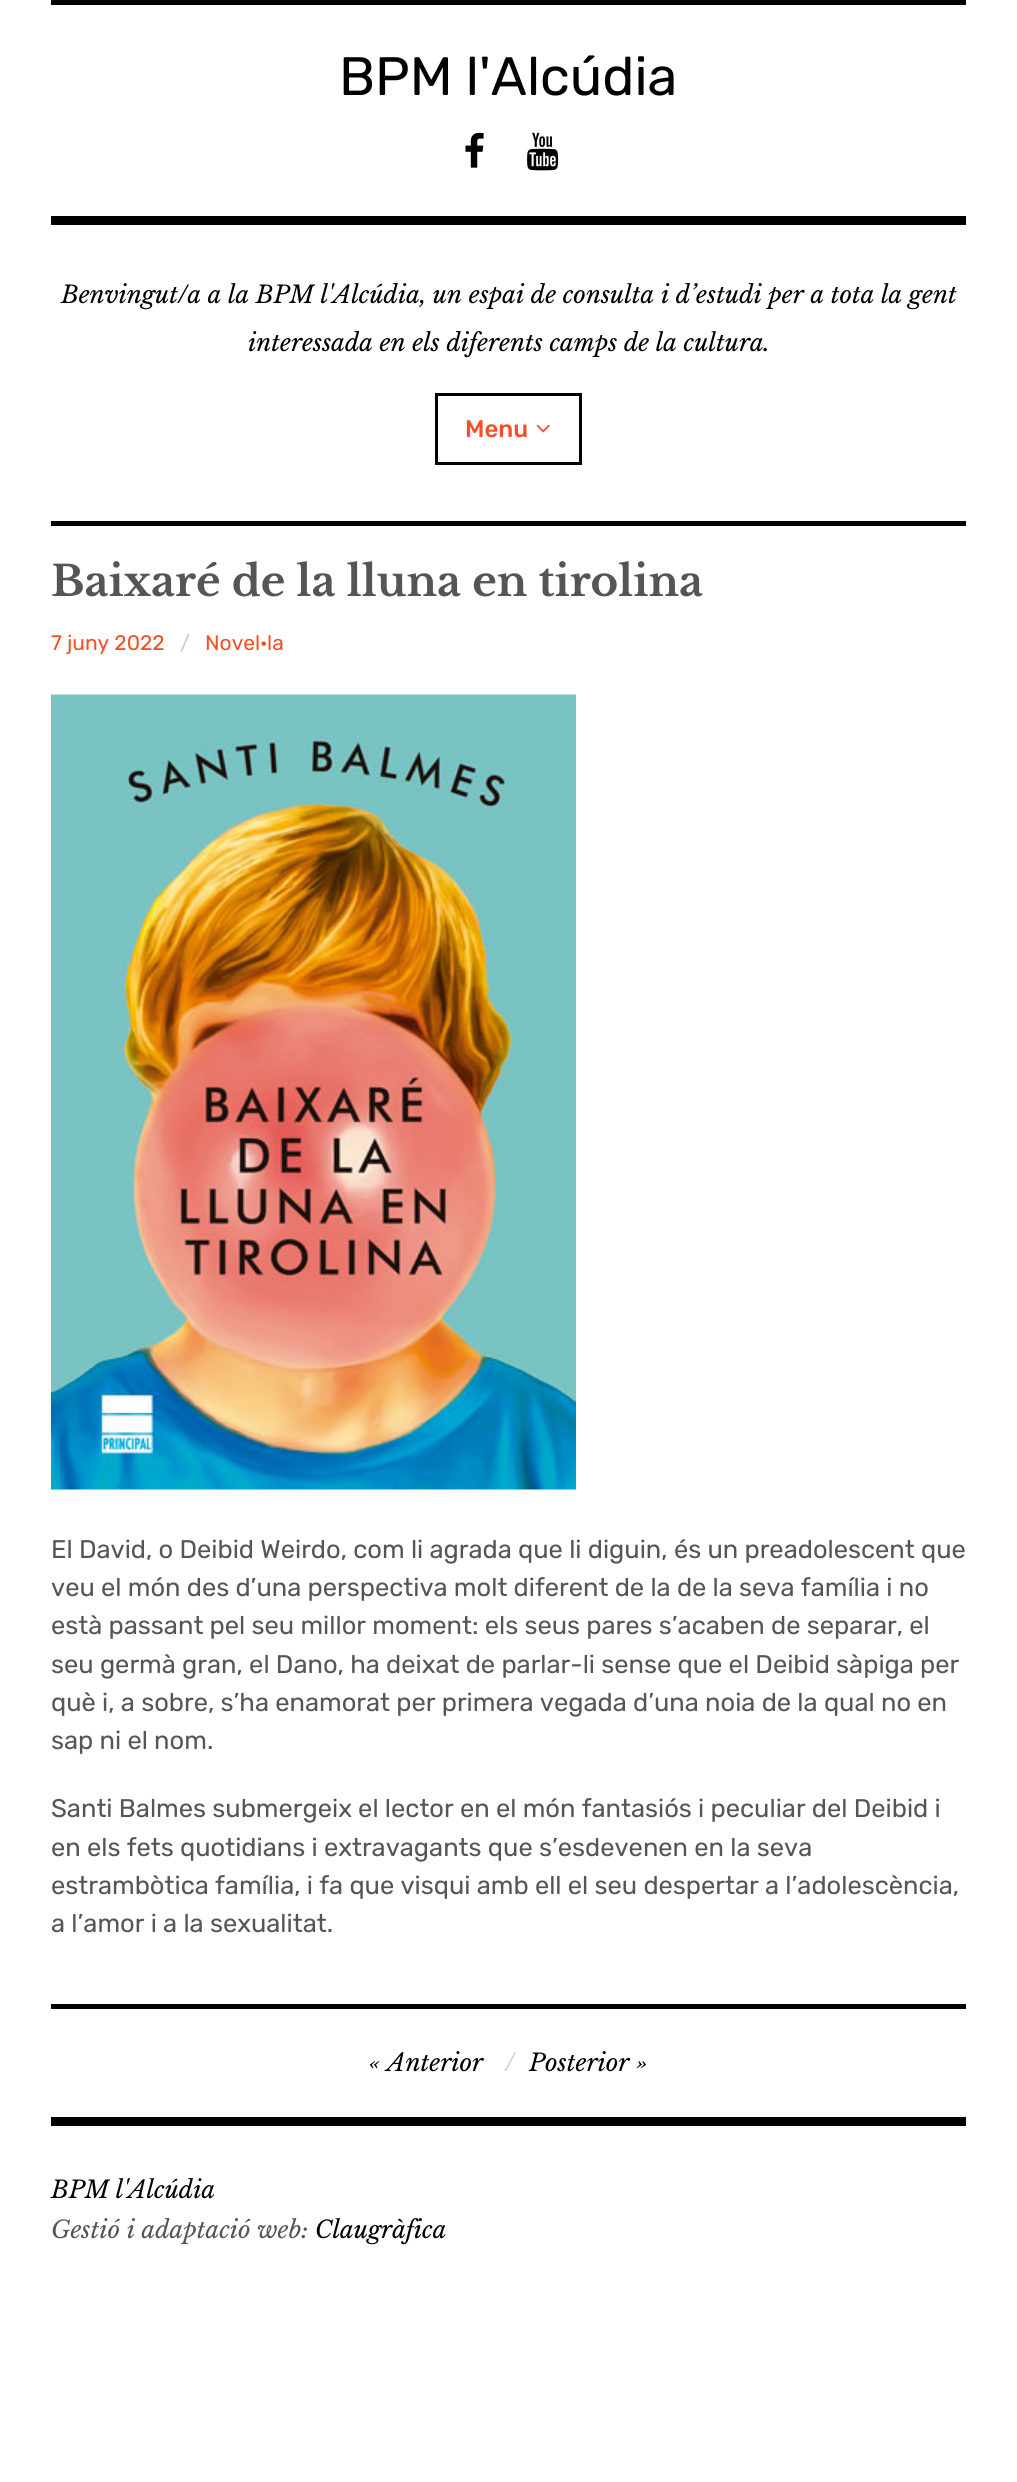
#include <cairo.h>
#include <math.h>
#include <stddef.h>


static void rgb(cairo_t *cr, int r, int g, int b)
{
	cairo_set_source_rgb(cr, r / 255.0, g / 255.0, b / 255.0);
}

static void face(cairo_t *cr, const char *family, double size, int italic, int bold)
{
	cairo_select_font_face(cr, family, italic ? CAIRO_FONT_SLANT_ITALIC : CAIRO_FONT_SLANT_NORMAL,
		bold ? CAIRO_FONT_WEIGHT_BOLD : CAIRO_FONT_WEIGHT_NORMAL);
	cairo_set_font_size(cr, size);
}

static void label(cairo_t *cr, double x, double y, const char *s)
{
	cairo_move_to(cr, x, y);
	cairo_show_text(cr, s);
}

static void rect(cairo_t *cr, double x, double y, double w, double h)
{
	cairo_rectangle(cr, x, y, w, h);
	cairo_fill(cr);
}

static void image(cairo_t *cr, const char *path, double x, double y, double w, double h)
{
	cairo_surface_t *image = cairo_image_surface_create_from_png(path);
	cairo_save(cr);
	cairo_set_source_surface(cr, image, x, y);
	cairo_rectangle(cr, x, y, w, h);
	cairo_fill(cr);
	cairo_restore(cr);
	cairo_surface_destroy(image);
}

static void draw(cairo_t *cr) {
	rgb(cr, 255, 255, 255);
	cairo_paint(cr);
	rgb(cr, 0, 0, 0);
	rect(cr, 51, 0, 915, 5);
	rect(cr, 51, 216, 915, 9);
	face(cr, "Rubik", 54, 0, 0);
	label(cr, 339, 95, "BPM l'Alcúdia");
	image(cr, "image0.png", 465, 132, 19, 36);
	image(cr, "image1.png", 527, 132, 32, 39);
	face(cr, "Libre Baskerville", 24, 1, 0);
	label(cr, 61, 303, "Benvingut/a a la BPM l'Alcúdia, un espai de consulta i d’estudi per a tota la gent");
	label(cr, 248, 351, "interessada en els diferents camps de la cultura.");
	cairo_rectangle(cr, 436.5, 394.5, 144, 69);
	cairo_set_line_width(cr, 3);
	cairo_stroke(cr);
	face(cr, "Rubik Medium", 24, 0, 0);
	rgb(cr, 243, 80, 41);
	label(cr, 465, 437, "Menu");
	image(cr, "image2.png", 536, 424, 14, 9);
	rgb(cr, 0, 0, 0);
	rect(cr, 51, 521, 915, 5);
	face(cr, "Libre Baskerville", 42, 0, 1);
	rgb(cr, 85, 85, 85);
	label(cr, 51, 596, "Baixaré de la lluna en tirolina");
	face(cr, "Rubik", 21, 0, 0);
	rgb(cr, 243, 80, 41);
	label(cr, 51, 650, "7 juny 2022");
	rgb(cr, 204, 204, 204);
	label(cr, 180, 650, "/");
	rgb(cr, 243, 80, 41);
	label(cr, 205, 650, "Novel·la");
	image(cr, "image3.png", 51, 694, 525, 796);
	face(cr, "Rubik", 25.5, 0, 0);
	rgb(cr, 85, 85, 85);
	label(cr, 51, 1558, "El David, o Deibid Weirdo, com li agrada que li diguin, és un preadolescent que");
	label(cr, 51, 1596, "veu el món des d’una perspectiva molt diferent de la de la seva família i no");
	label(cr, 51, 1634, "està passant pel seu millor moment: els seus pares s’acaben de separar, el");
	label(cr, 51, 1673, "seu germà gran, el Dano, ha deixat de parlar-li sense que el Deibid sàpiga per");
	label(cr, 51, 1711, "què i, a sobre, s’ha enamorat per primera vegada d’una noia de la qual no en");
	label(cr, 51, 1749, "sap ni el nom.");
	label(cr, 51, 1817, "Santi Balmes submergeix el lector en el món fantasiós i peculiar del Deibid i");
	label(cr, 51, 1856, "en els fets quotidians i extravagants que s’esdevenen en la seva");
	label(cr, 51, 1894, "estrambòtica família, i fa que visqui amb ell el seu despertar a l’adolescència,");
	label(cr, 51, 1932, "a l’amor i a la sexualitat.");
	rgb(cr, 0, 0, 0);
	rect(cr, 51, 2004, 915, 5);
	face(cr, "Libre Baskerville", 24, 1, 0);
	label(cr, 369, 2071, "« Anterior");
	rgb(cr, 204, 204, 204);
	label(cr, 505, 2071, "/");
	rgb(cr, 0, 0, 0);
	label(cr, 529, 2071, "Posterior »");
	rect(cr, 51, 2117, 915, 9);
	label(cr, 51, 2198, "BPM l'Alcúdia");
	rgb(cr, 85, 85, 85);
	label(cr, 51, 2238, "Gestió i adaptació web:");
	rgb(cr, 0, 0, 0);
	label(cr, 315, 2238, "Claugràfica");
}

int main(void) {
	cairo_surface_t *surface = cairo_image_surface_create(CAIRO_FORMAT_RGB24, 1017, 2482);
	cairo_t *cr = cairo_create(surface);
	cairo_font_options_t *options = cairo_font_options_create();
	cairo_font_options_set_hint_metrics(options, CAIRO_HINT_METRICS_OFF);
	cairo_font_options_set_hint_style(options, CAIRO_HINT_STYLE_NONE);
	cairo_set_font_options(cr, options);
	cairo_set_miter_limit(cr, 4);
	draw(cr);
	cairo_surface_write_to_png(surface, "render.png");
	cairo_font_options_destroy(options);
	cairo_destroy(cr);
	cairo_surface_destroy(surface);
	return 0;
}
